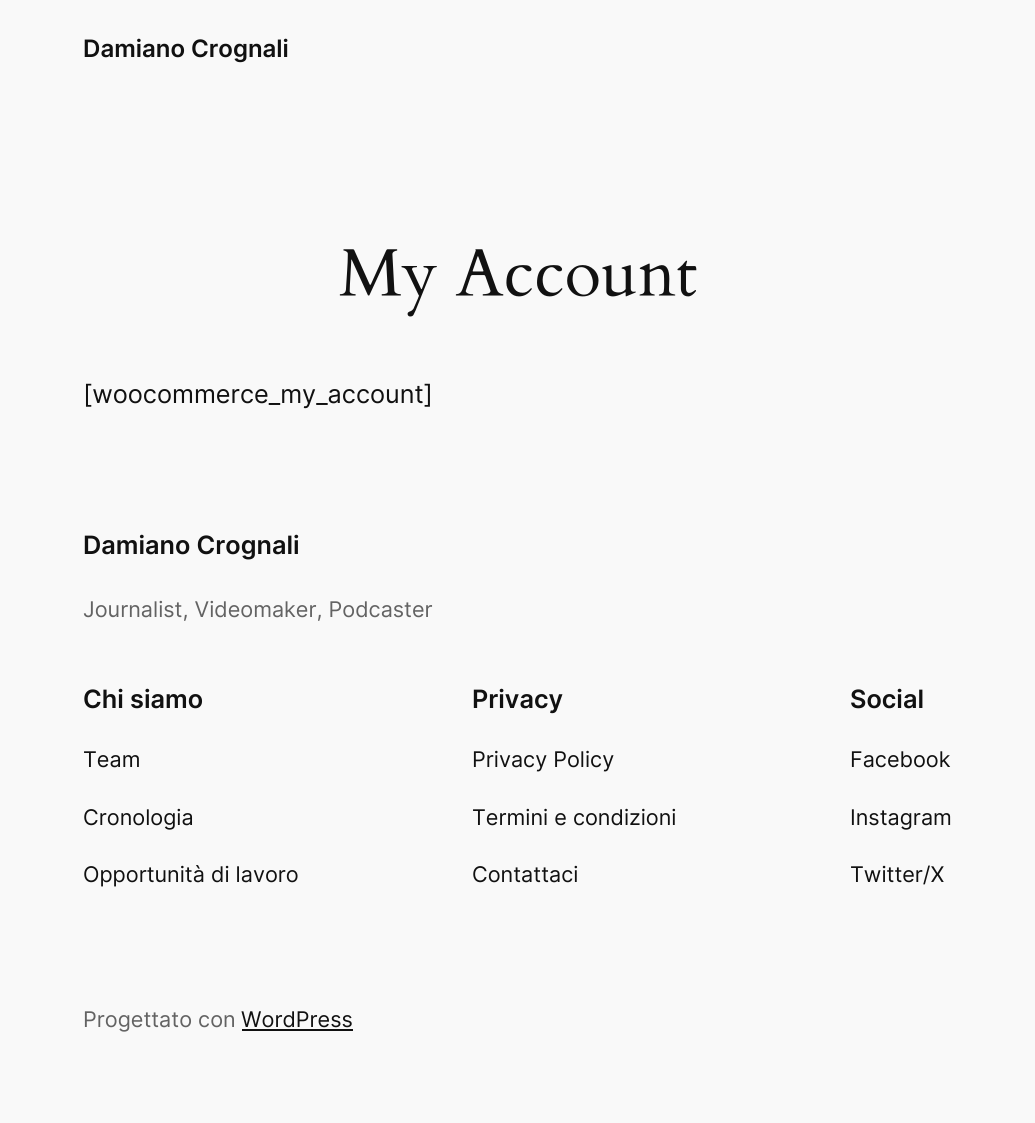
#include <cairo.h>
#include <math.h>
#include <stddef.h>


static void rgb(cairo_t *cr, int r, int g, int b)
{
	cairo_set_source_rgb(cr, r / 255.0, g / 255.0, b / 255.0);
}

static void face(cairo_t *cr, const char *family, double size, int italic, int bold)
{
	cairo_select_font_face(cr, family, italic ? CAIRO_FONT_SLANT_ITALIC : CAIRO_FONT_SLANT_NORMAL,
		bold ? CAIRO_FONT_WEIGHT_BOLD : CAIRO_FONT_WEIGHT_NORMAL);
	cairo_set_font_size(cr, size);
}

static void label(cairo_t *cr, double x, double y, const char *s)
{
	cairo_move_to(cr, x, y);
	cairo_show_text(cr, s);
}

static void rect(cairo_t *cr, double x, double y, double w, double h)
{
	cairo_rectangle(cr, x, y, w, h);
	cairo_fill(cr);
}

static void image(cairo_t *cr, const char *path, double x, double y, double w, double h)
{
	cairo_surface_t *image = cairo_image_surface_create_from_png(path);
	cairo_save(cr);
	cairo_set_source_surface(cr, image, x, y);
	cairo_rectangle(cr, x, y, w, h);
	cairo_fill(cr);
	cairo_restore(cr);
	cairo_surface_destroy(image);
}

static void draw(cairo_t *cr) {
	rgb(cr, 249, 249, 249);
	cairo_paint(cr);
	face(cr, "Inter SemiBold", 24, 0, 0);
	rgb(cr, 17, 17, 17);
	label(cr, 83, 57, "Damiano Crognali");
	image(cr, "image0.png", 339, 249, 358, 68);
	face(cr, "Inter", 25.25, 0, 0);
	label(cr, 83, 403, "[woocommerce_my_account]");
	face(cr, "Inter SemiBold", 25.25, 0, 0);
	label(cr, 83, 554, "Damiano Crognali");
	face(cr, "Inter", 21.6, 0, 0);
	rgb(cr, 99, 99, 99);
	label(cr, 83, 617, "Journalist, Videomaker, Podcaster");
	face(cr, "Inter SemiBold", 25.25, 0, 0);
	rgb(cr, 17, 17, 17);
	label(cr, 83, 708, "Chi siamo");
	face(cr, "Inter", 21.6, 0, 0);
	label(cr, 83, 767, "Team");
	label(cr, 83, 825, "Cronologia");
	label(cr, 83, 882, "Opportunità di lavoro");
	face(cr, "Inter SemiBold", 25.25, 0, 0);
	label(cr, 472, 708, "Privacy");
	face(cr, "Inter", 21.6, 0, 0);
	label(cr, 472, 767, "Privacy Policy");
	label(cr, 472, 825, "Termini e condizioni");
	label(cr, 472, 882, "Contattaci");
	face(cr, "Inter SemiBold", 25.25, 0, 0);
	label(cr, 850, 708, "Social");
	face(cr, "Inter", 21.6, 0, 0);
	label(cr, 850, 767, "Facebook");
	label(cr, 850, 825, "Instagram");
	label(cr, 850, 882, "Twitter/X");
	rgb(cr, 99, 99, 99);
	label(cr, 83, 1027, "Progettato con");
	rgb(cr, 17, 17, 17);
	label(cr, 241, 1027, "WordPress");
	rect(cr, 242, 1029, 111, 2);
}

int main(void) {
	cairo_surface_t *surface = cairo_image_surface_create(CAIRO_FORMAT_RGB24, 1035, 1123);
	cairo_t *cr = cairo_create(surface);
	cairo_font_options_t *options = cairo_font_options_create();
	cairo_font_options_set_hint_metrics(options, CAIRO_HINT_METRICS_OFF);
	cairo_font_options_set_hint_style(options, CAIRO_HINT_STYLE_NONE);
	cairo_set_font_options(cr, options);
	cairo_set_miter_limit(cr, 4);
	draw(cr);
	cairo_surface_write_to_png(surface, "render.png");
	cairo_font_options_destroy(options);
	cairo_destroy(cr);
	cairo_surface_destroy(surface);
	return 0;
}
